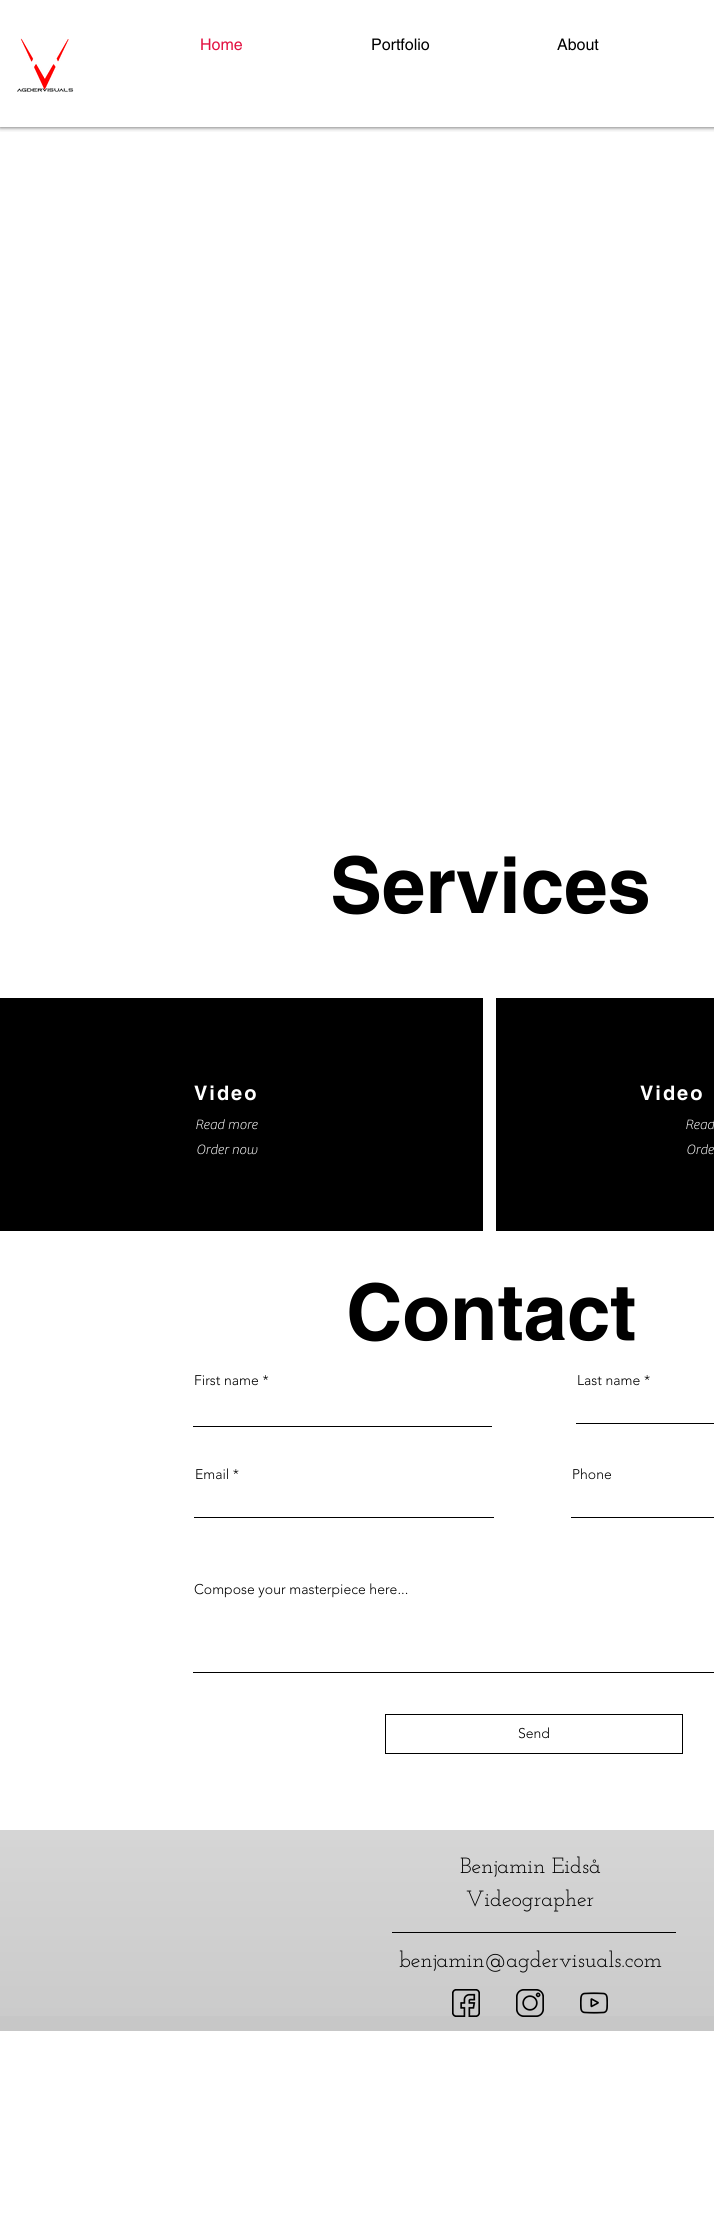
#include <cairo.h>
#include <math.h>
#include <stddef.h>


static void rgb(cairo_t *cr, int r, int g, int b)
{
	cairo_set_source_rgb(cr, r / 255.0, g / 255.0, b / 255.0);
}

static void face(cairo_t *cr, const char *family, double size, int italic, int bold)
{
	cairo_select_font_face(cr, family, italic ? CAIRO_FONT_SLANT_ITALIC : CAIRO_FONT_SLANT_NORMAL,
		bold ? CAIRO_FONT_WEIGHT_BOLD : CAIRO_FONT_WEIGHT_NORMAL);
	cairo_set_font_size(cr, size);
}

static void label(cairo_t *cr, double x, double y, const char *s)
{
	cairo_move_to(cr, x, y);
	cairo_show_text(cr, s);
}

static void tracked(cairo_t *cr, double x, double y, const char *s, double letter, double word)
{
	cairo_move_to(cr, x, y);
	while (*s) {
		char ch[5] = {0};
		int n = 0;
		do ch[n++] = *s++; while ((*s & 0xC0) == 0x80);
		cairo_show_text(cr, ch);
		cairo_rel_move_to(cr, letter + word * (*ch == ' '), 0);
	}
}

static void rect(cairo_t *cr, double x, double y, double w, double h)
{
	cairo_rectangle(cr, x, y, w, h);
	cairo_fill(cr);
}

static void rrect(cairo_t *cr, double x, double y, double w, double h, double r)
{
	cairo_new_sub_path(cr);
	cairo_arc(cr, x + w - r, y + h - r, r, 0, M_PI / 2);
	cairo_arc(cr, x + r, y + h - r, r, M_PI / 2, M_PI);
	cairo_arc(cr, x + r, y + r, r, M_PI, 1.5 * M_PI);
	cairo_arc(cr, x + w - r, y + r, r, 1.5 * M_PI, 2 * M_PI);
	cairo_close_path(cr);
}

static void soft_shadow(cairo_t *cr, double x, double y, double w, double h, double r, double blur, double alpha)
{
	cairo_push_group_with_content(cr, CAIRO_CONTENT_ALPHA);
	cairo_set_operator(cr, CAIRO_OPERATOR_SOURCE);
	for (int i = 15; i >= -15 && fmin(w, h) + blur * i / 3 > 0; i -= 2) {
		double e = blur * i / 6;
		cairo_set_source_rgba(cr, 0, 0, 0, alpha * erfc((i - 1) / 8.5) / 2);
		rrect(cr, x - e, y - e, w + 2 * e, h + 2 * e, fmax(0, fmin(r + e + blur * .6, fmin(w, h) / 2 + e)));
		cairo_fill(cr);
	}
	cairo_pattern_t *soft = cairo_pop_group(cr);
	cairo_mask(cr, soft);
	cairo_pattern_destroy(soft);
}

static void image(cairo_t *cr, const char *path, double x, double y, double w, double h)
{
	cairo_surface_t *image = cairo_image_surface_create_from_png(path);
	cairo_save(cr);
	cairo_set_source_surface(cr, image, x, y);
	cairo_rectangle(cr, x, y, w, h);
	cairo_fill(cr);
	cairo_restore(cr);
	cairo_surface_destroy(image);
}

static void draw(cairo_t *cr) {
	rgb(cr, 255, 255, 255);
	cairo_paint(cr);
	cairo_save(cr);
	cairo_rectangle(cr, 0, 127, 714, 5);
	cairo_clip(cr);
	rgb(cr, 0, 0, 0);
	soft_shadow(cr, 0, 0, 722, 127, 0, 2.5, 0.7);
	cairo_restore(cr);
	image(cr, "image1.png", 17, 88, 57, 4);
	image(cr, "image0.png", 20, 38, 49, 52);
	face(cr, "helvetica", 16, 0, 0);
	rgb(cr, 226, 17, 65);
	label(cr, 200, 50, "Home");
	rgb(cr, 0, 0, 0);
	label(cr, 371, 50, "Portfolio");
	label(cr, 557, 50, "About");
	face(cr, "helvetica", 78, 0, 1);
	label(cr, 330, 913, "Services");
	rect(cr, 0, 998, 483, 233);
	face(cr, "helvetica", 20, 0, 1);
	rgb(cr, 255, 255, 255);
	tracked(cr, 194, 1100, "Video", 2, 0);
	face(cr, "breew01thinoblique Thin", 14, 0, 0);
	label(cr, 195, 1129, "Read more");
	label(cr, 196, 1154, "Order now");
	rgb(cr, 0, 0, 0);
	rect(cr, 496, 998, 218, 233);
	face(cr, "helvetica", 20, 0, 1);
	rgb(cr, 255, 255, 255);
	tracked(cr, 640, 1100, "Video", 2, 0);
	face(cr, "breew01thinoblique Thin", 14, 0, 0);
	label(cr, 685, 1129, "Read");
	label(cr, 686, 1154, "Orde");
	face(cr, "helvetica", 78, 0, 1);
	rgb(cr, 0, 0, 0);
	label(cr, 346, 1340, "Contact");
	face(cr, "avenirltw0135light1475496 Light", 14, 0, 0);
	label(cr, 194, 1385, "First name *");
	rect(cr, 193, 1426, 299, 1);
	label(cr, 577, 1385, "Last name *");
	rect(cr, 576, 1423, 138, 1);
	label(cr, 195, 1479, "Email *");
	rect(cr, 194, 1517, 300, 1);
	label(cr, 572, 1479, "Phone");
	rect(cr, 571, 1517, 143, 1);
	label(cr, 194, 1594, "Compose your masterpiece here...");
	rect(cr, 193, 1672, 521, 1);
	cairo_rectangle(cr, 385.5, 1714.5, 297, 39);
	cairo_set_line_width(cr, 1);
	cairo_stroke(cr);
	label(cr, 518, 1738, "Send");
	rgb(cr, 199, 199, 199);
	rect(cr, 0, 1830, 714, 201);
	image(cr, "image2.png", 0, 1830, 714, 186);
	face(cr, "Josefin Slab", 22, 0, 0);
	rgb(cr, 0, 0, 0);
	label(cr, 460, 1873, "Benjamin Eidså");
	label(cr, 466, 1906, "Videographer");
	rect(cr, 392, 1932, 284, 1);
	label(cr, 399, 1967, "benjamin@agdervisuals.com");
	image(cr, "image3.png", 452, 1989, 28, 28);
	image(cr, "image4.png", 516, 1989, 28, 28);
	image(cr, "image5.png", 580, 1992, 28, 22);
}

int main(void) {
	cairo_surface_t *surface = cairo_image_surface_create(CAIRO_FORMAT_RGB24, 714, 2240);
	cairo_t *cr = cairo_create(surface);
	cairo_font_options_t *options = cairo_font_options_create();
	cairo_font_options_set_hint_metrics(options, CAIRO_HINT_METRICS_OFF);
	cairo_font_options_set_hint_style(options, CAIRO_HINT_STYLE_NONE);
	cairo_set_font_options(cr, options);
	cairo_set_miter_limit(cr, 4);
	draw(cr);
	cairo_surface_write_to_png(surface, "render.png");
	cairo_font_options_destroy(options);
	cairo_destroy(cr);
	cairo_surface_destroy(surface);
	return 0;
}
